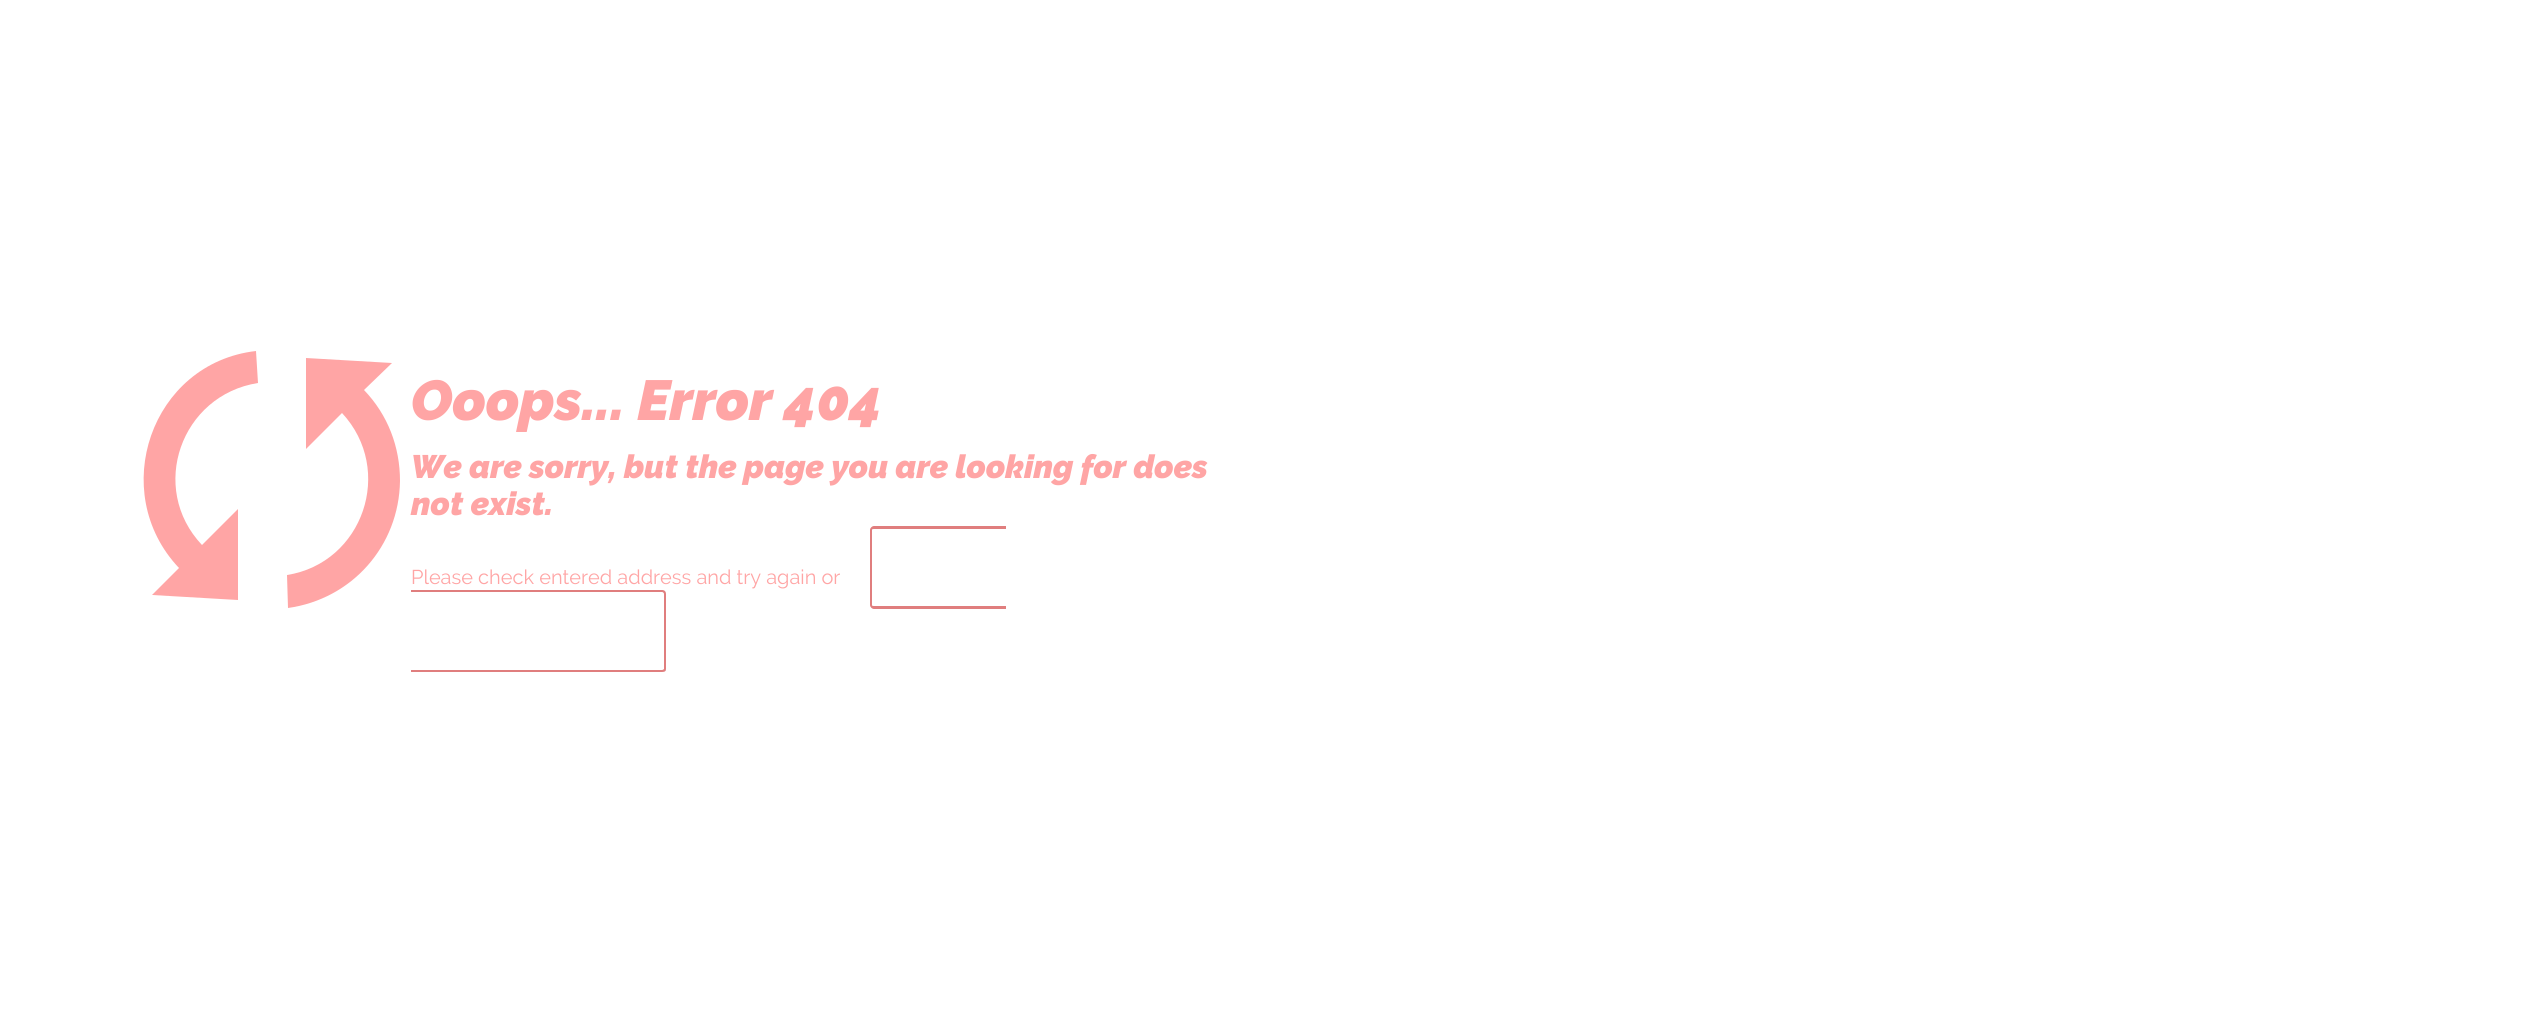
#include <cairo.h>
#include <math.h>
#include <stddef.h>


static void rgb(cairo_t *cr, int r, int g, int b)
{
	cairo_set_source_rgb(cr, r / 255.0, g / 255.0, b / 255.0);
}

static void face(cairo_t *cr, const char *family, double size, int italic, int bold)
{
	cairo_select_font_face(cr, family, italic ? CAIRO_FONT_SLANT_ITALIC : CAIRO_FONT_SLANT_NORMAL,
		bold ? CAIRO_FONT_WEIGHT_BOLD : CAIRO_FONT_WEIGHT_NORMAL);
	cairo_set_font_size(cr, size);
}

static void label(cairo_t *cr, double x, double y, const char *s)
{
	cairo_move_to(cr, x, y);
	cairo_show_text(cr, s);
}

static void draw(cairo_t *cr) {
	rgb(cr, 255, 255, 255);
	cairo_paint(cr);
	rgb(cr, 255, 165, 165);
	cairo_new_path(cr);
	cairo_move_to(cr, 202, 545);
	cairo_line_to(cr, 238, 509);
	cairo_line_to(cr, 238, 600);
	cairo_line_to(cr, 152, 595);
	cairo_line_to(cr, 179, 568);
	cairo_curve_to(cr, 107, 492, 151, 363, 256, 351);
	cairo_line_to(cr, 258, 383);
	cairo_curve_to(cr, 181, 395, 148, 488, 202, 545);
	cairo_close_path(cr);
	cairo_move_to(cr, 306, 358);
	cairo_line_to(cr, 392, 363);
	cairo_line_to(cr, 364, 390);
	cairo_curve_to(cr, 388, 415, 400, 447, 400, 481);
	cairo_curve_to(cr, 399, 546, 352, 599, 288, 608);
	cairo_line_to(cr, 287, 575);
	cairo_curve_to(cr, 363, 563, 395, 470, 342, 413);
	cairo_line_to(cr, 306, 449);
	cairo_close_path(cr);
	cairo_fill(cr);
	face(cr, "Raleway Black", 56.25, 1, 0);
	label(cr, 411, 420, "Ooops... Error 404");
	face(cr, "Raleway Black", 32.5, 1, 0);
	label(cr, 411, 478, "We are sorry, but the page you are looking for does");
	label(cr, 411, 515, "not exist.");
	face(cr, "Raleway", 20, 0, 0);
	label(cr, 411, 584, "Please check entered address and try again or");
	rgb(cr, 224, 126, 126);
	cairo_set_fill_rule(cr, CAIRO_FILL_RULE_EVEN_ODD);
	cairo_new_path(cr);
	cairo_move_to(cr, 874, 526);
	cairo_line_to(cr, 1006, 526);
	cairo_line_to(cr, 1006, 609);
	cairo_line_to(cr, 874, 609);
	cairo_curve_to(cr, 872, 609, 870, 607, 870, 605);
	cairo_line_to(cr, 870, 530);
	cairo_curve_to(cr, 870, 528, 872, 526, 874, 526);
	cairo_close_path(cr);
	cairo_move_to(cr, 874, 529);
	cairo_line_to(cr, 1006, 529);
	cairo_line_to(cr, 1006, 606);
	cairo_line_to(cr, 874, 606);
	cairo_curve_to(cr, 873, 606, 872, 606, 872, 605);
	cairo_line_to(cr, 872, 530);
	cairo_curve_to(cr, 872, 529, 873, 529, 874, 529);
	cairo_close_path(cr);
	cairo_fill(cr);
	cairo_new_path(cr);
	cairo_move_to(cr, 411, 590);
	cairo_line_to(cr, 662, 590);
	cairo_curve_to(cr, 665, 590, 666, 592, 666, 594);
	cairo_line_to(cr, 666, 669);
	cairo_curve_to(cr, 666, 671, 665, 672, 662, 672);
	cairo_line_to(cr, 411, 672);
	cairo_close_path(cr);
	cairo_move_to(cr, 411, 592);
	cairo_line_to(cr, 662, 592);
	cairo_curve_to(cr, 663, 592, 664, 593, 664, 594);
	cairo_line_to(cr, 664, 669);
	cairo_curve_to(cr, 664, 669, 663, 670, 662, 670);
	cairo_line_to(cr, 411, 670);
	cairo_close_path(cr);
	cairo_fill(cr);
}

int main(void) {
	cairo_surface_t *surface = cairo_image_surface_create(CAIRO_FORMAT_RGB24, 2525, 1020);
	cairo_t *cr = cairo_create(surface);
	cairo_font_options_t *options = cairo_font_options_create();
	cairo_font_options_set_hint_metrics(options, CAIRO_HINT_METRICS_OFF);
	cairo_font_options_set_hint_style(options, CAIRO_HINT_STYLE_NONE);
	cairo_set_font_options(cr, options);
	cairo_set_miter_limit(cr, 4);
	draw(cr);
	cairo_surface_write_to_png(surface, "render.png");
	cairo_font_options_destroy(options);
	cairo_destroy(cr);
	cairo_surface_destroy(surface);
	return 0;
}
